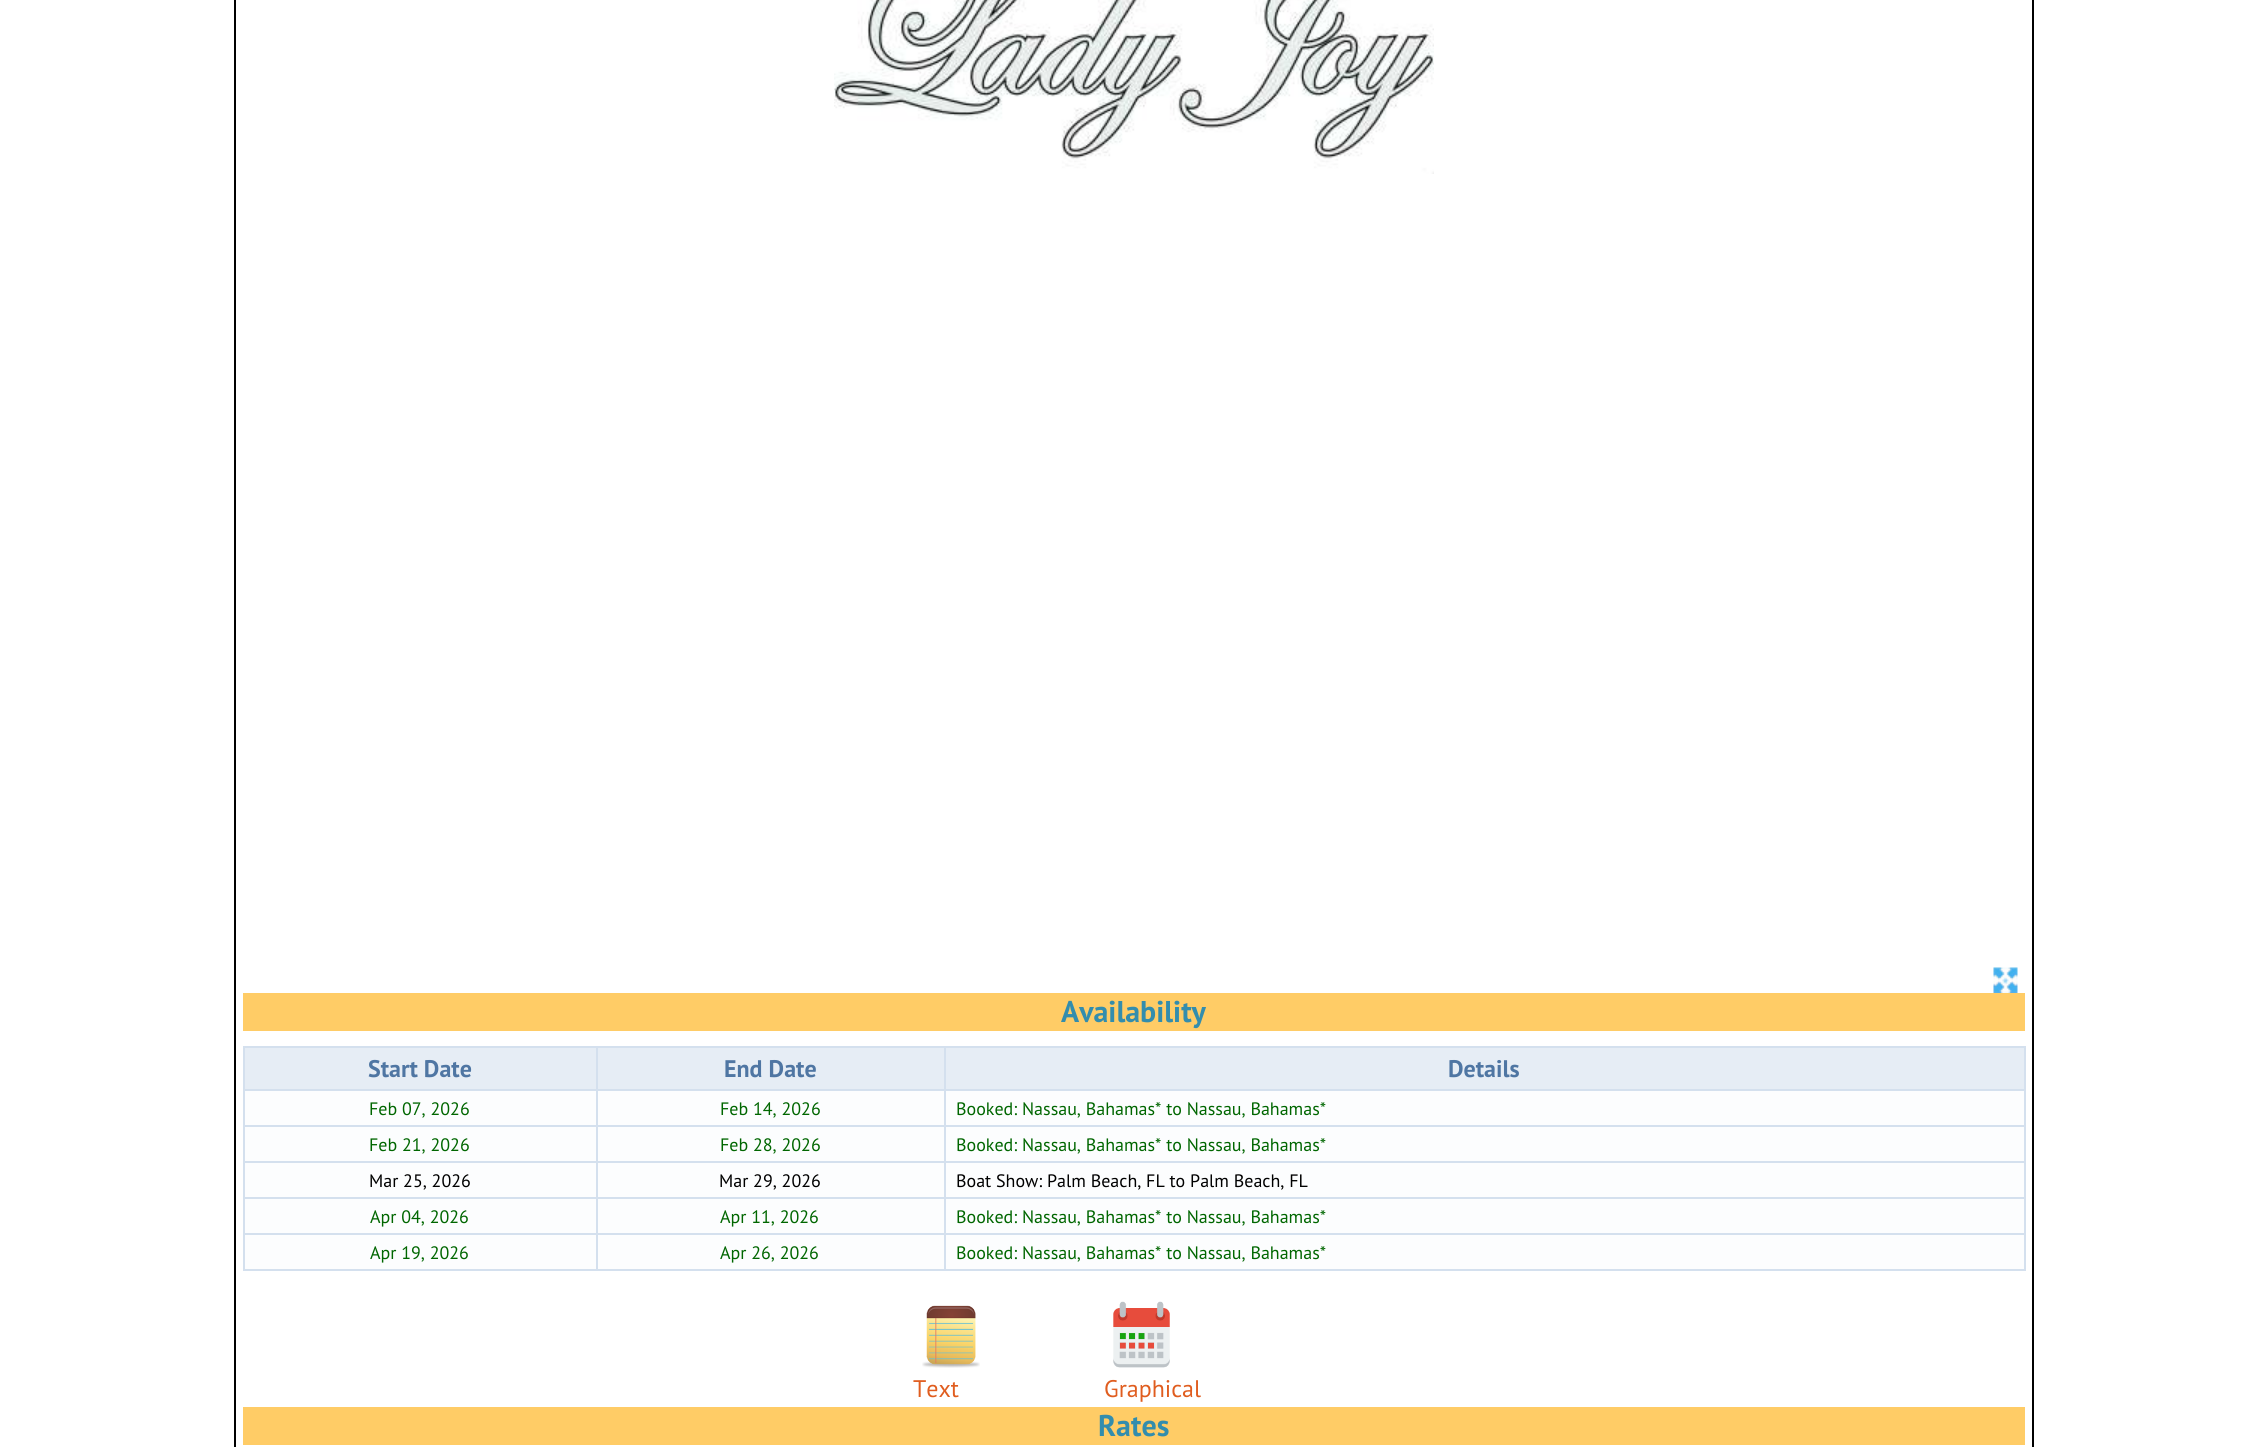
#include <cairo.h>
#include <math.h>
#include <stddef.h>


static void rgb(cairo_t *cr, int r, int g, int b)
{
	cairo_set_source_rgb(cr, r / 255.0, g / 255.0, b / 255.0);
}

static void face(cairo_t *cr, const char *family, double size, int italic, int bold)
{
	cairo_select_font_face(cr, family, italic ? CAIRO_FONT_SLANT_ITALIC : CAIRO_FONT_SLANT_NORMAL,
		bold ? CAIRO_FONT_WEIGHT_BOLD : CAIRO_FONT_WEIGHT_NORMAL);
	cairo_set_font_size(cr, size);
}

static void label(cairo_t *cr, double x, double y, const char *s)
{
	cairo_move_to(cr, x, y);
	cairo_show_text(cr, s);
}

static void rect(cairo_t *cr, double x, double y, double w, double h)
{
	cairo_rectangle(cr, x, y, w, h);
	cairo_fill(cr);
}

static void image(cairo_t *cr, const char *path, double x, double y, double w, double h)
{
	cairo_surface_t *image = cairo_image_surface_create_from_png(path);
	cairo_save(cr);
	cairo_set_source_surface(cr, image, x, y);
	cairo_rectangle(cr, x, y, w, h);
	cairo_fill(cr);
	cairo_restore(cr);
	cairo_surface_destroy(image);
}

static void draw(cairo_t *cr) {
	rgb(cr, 255, 255, 255);
	cairo_paint(cr);
	cairo_rectangle(cr, 235, -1, 1798, 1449);
	rgb(cr, 0, 0, 0);
	cairo_stroke(cr);
	image(cr, "image0.png", 834, 0, 600, 174);
	image(cr, "image1.png", 1993, 967, 25, 26);
	rgb(cr, 255, 204, 102);
	rect(cr, 243, 993, 1782, 38);
	face(cr, "PT Sans", 30, 0, 1);
	rgb(cr, 51, 141, 173);
	label(cr, 1061, 1022, "Availability");
	rgb(cr, 212, 224, 238);
	rect(cr, 243, 1046, 1782, 2);
	rect(cr, 2024, 1046, 2, 225);
	rect(cr, 243, 1269, 1782, 2);
	rect(cr, 243, 1046, 2, 225);
	rgb(cr, 230, 237, 245);
	rect(cr, 245, 1048, 351, 41);
	face(cr, "PT Sans", 24, 0, 1);
	rgb(cr, 79, 118, 163);
	label(cr, 368, 1077, "Start Date");
	rgb(cr, 230, 237, 245);
	rect(cr, 598, 1048, 346, 41);
	rgb(cr, 212, 224, 238);
	rect(cr, 944, 1089, 1081, 2);
	rgb(cr, 252, 253, 254);
	rect(cr, 245, 1091, 1779, 34);
	rgb(cr, 212, 224, 238);
	rect(cr, 944, 1125, 1081, 2);
	rgb(cr, 252, 253, 254);
	rect(cr, 245, 1127, 1779, 34);
	rgb(cr, 212, 224, 238);
	rect(cr, 944, 1161, 1081, 2);
	rgb(cr, 252, 253, 254);
	rect(cr, 245, 1163, 1779, 34);
	rgb(cr, 212, 224, 238);
	rect(cr, 944, 1197, 1081, 2);
	rgb(cr, 252, 253, 254);
	rect(cr, 245, 1199, 1779, 34);
	rgb(cr, 212, 224, 238);
	rect(cr, 944, 1233, 1081, 2);
	rgb(cr, 252, 253, 254);
	rect(cr, 245, 1235, 1779, 34);
	rgb(cr, 212, 224, 238);
	rect(cr, 944, 1233, 2, 38);
	rect(cr, 596, 1233, 349, 2);
	rect(cr, 944, 1197, 2, 38);
	rect(cr, 596, 1197, 349, 2);
	rect(cr, 944, 1161, 2, 38);
	rect(cr, 596, 1161, 349, 2);
	rect(cr, 944, 1125, 2, 38);
	rect(cr, 596, 1125, 349, 2);
	rect(cr, 944, 1089, 2, 38);
	rect(cr, 596, 1089, 349, 2);
	rect(cr, 596, 1233, 2, 38);
	rect(cr, 243, 1233, 354, 2);
	rect(cr, 596, 1197, 2, 38);
	rect(cr, 243, 1197, 354, 2);
	rect(cr, 596, 1161, 2, 38);
	rect(cr, 243, 1161, 354, 2);
	rect(cr, 596, 1125, 2, 38);
	rect(cr, 243, 1125, 354, 2);
	rect(cr, 596, 1089, 2, 38);
	rect(cr, 243, 1089, 354, 2);
	rect(cr, 596, 1046, 2, 45);
	rgb(cr, 79, 118, 163);
	label(cr, 724, 1077, "End Date");
	rgb(cr, 230, 237, 245);
	rect(cr, 946, 1048, 1078, 41);
	rgb(cr, 212, 224, 238);
	rect(cr, 944, 1046, 2, 45);
	rgb(cr, 79, 118, 163);
	label(cr, 1448, 1077, "Details");
	face(cr, "PT Sans", 18, 0, 0);
	rgb(cr, 0, 102, 0);
	label(cr, 369, 1115, "Feb 07, 2026");
	label(cr, 720, 1115, "Feb 14, 2026");
	label(cr, 956, 1115, "Booked: Nassau, Bahamas* to Nassau, Bahamas*");
	label(cr, 369, 1151, "Feb 21, 2026");
	label(cr, 720, 1151, "Feb 28, 2026");
	label(cr, 956, 1151, "Booked: Nassau, Bahamas* to Nassau, Bahamas*");
	rgb(cr, 0, 0, 0);
	label(cr, 369, 1187, "Mar 25, 2026");
	label(cr, 719, 1187, "Mar 29, 2026");
	label(cr, 956, 1187, "Boat Show: Palm Beach, FL to Palm Beach, FL");
	rgb(cr, 0, 102, 0);
	label(cr, 370, 1223, "Apr 04, 2026");
	label(cr, 720, 1223, "Apr 11, 2026");
	label(cr, 956, 1223, "Booked: Nassau, Bahamas* to Nassau, Bahamas*");
	label(cr, 370, 1259, "Apr 19, 2026");
	label(cr, 720, 1259, "Apr 26, 2026");
	label(cr, 956, 1259, "Booked: Nassau, Bahamas* to Nassau, Bahamas*");
	image(cr, "image2.png", 922, 1305, 58, 63);
	face(cr, "PT Sans", 24, 0, 0);
	rgb(cr, 224, 93, 31);
	label(cr, 913, 1397, "Text");
	image(cr, "image3.png", 1113, 1301, 57, 67);
	label(cr, 1104, 1397, "Graphical");
	rgb(cr, 255, 204, 102);
	rect(cr, 243, 1407, 1782, 38);
	face(cr, "PT Sans", 30, 0, 1);
	rgb(cr, 51, 141, 173);
	label(cr, 1098, 1436, "Rates");
}

int main(void) {
	cairo_surface_t *surface = cairo_image_surface_create(CAIRO_FORMAT_RGB24, 2266, 1447);
	cairo_t *cr = cairo_create(surface);
	cairo_font_options_t *options = cairo_font_options_create();
	cairo_font_options_set_hint_metrics(options, CAIRO_HINT_METRICS_OFF);
	cairo_font_options_set_hint_style(options, CAIRO_HINT_STYLE_NONE);
	cairo_set_font_options(cr, options);
	cairo_set_miter_limit(cr, 4);
	draw(cr);
	cairo_surface_write_to_png(surface, "render.png");
	cairo_font_options_destroy(options);
	cairo_destroy(cr);
	cairo_surface_destroy(surface);
	return 0;
}
